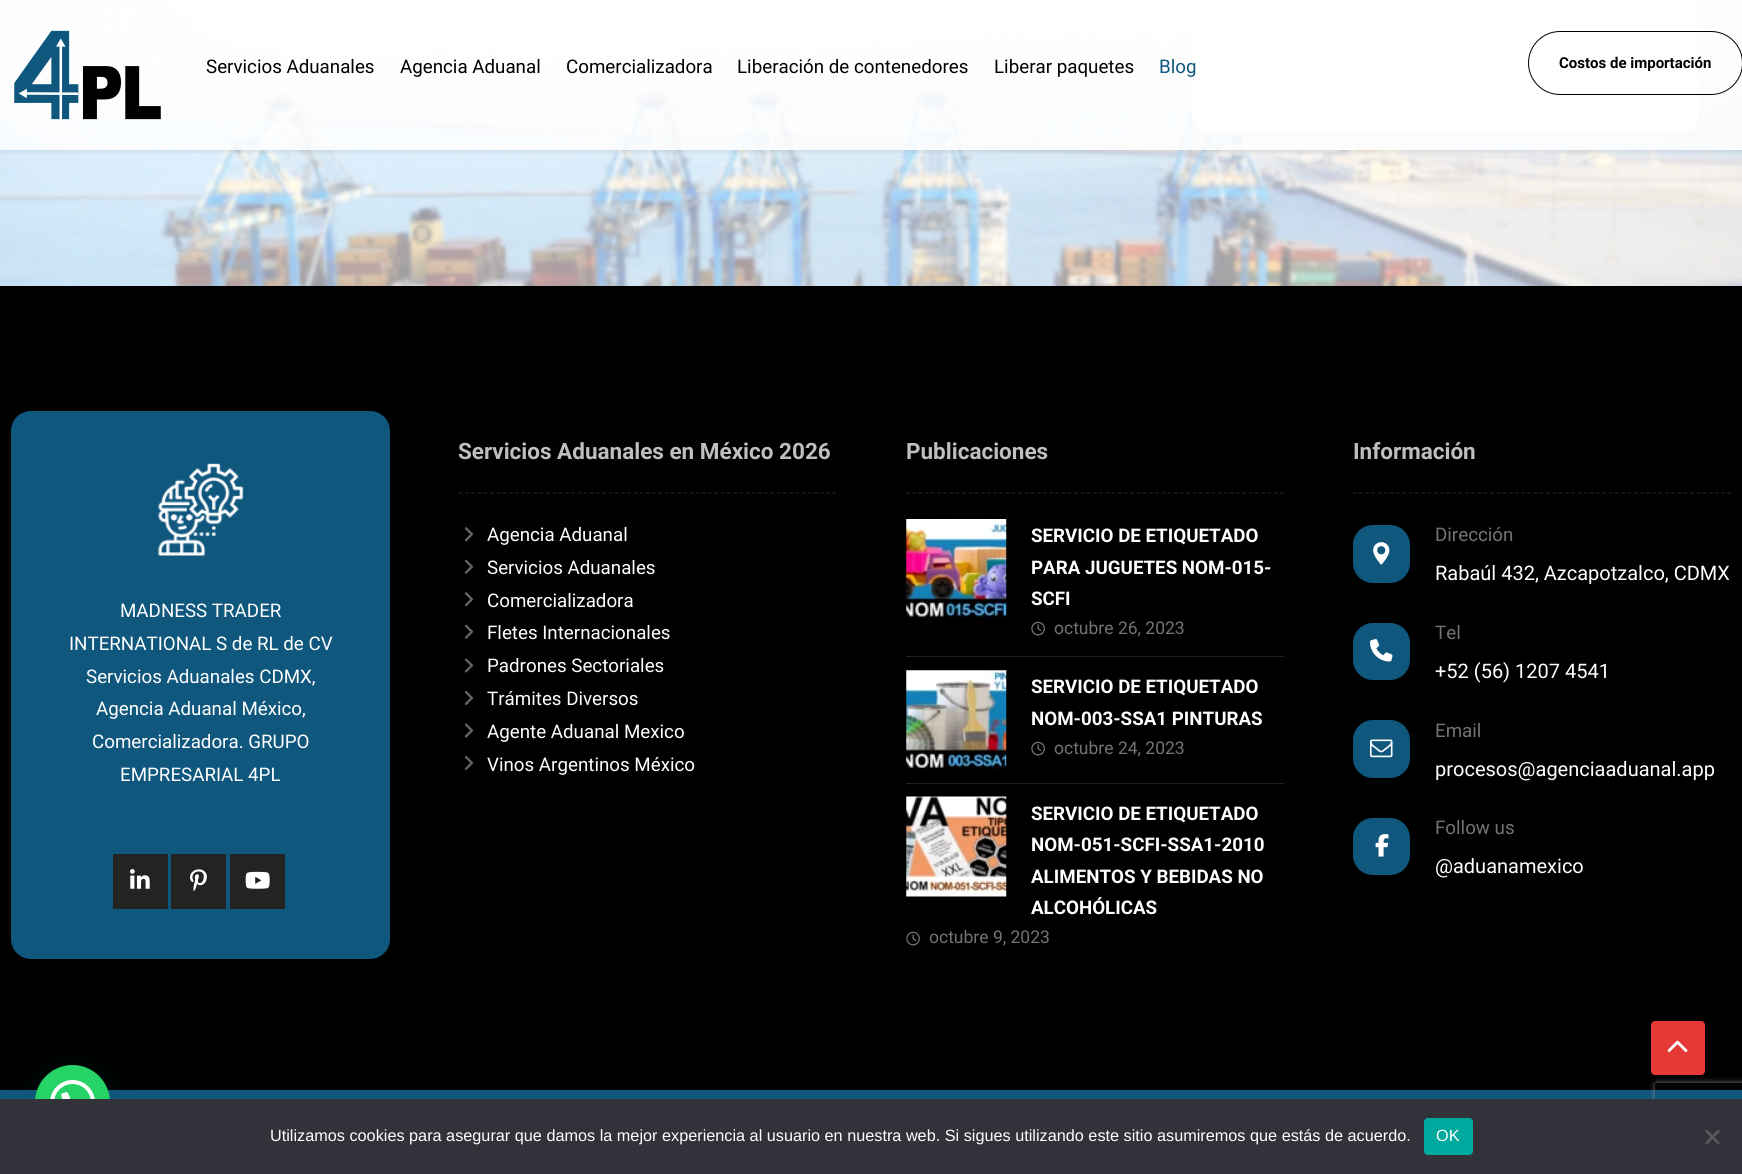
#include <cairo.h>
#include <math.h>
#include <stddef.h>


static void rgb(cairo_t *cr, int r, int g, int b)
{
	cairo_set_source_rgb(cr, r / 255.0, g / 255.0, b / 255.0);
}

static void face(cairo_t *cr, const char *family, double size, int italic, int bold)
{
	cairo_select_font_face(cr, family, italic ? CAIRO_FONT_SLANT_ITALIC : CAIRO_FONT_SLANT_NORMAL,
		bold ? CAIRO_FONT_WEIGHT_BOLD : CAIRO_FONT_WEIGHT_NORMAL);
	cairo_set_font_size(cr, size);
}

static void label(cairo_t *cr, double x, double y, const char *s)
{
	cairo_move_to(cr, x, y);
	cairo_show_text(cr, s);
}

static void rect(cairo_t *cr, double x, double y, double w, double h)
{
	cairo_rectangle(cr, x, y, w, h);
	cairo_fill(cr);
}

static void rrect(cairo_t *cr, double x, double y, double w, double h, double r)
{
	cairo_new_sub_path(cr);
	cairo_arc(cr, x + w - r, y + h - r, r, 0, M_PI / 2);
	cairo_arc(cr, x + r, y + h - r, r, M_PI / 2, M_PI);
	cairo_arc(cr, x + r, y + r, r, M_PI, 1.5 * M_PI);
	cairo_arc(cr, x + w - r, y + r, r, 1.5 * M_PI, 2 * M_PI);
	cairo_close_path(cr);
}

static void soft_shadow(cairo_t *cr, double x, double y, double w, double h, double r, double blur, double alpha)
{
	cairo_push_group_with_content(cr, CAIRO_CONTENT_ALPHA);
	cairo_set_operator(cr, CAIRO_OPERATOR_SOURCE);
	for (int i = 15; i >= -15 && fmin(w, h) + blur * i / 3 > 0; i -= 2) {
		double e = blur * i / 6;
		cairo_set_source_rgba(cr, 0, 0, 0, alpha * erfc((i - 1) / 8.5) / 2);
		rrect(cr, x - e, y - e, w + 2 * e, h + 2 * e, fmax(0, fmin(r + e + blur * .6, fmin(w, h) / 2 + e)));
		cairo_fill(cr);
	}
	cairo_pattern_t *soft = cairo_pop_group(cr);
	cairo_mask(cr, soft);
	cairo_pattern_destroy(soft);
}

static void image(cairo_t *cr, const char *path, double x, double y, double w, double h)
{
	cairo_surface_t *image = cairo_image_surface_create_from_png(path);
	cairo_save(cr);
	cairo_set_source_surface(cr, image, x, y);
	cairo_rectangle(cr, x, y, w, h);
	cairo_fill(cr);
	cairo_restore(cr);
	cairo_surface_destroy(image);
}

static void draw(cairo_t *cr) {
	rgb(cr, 255, 255, 255);
	cairo_paint(cr);
	image(cr, "image0.png", 0, 0, 1742, 286);
	rgb(cr, 255, 255, 255);
	rrect(cr, 1191, -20, 508, 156, 20);
	cairo_fill(cr);
	rrect(cr, 1191.5, -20.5, 507, 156, 19.5);
	cairo_set_source_rgba(cr, 0, 0, 0.004, 0.1);
	cairo_set_line_width(cr, 1);
	cairo_stroke(cr);
	cairo_set_source_rgba(cr, 0, 0, 0, 0.1);
	rect(cr, 1193, 134, 505, 1);
	cairo_save(cr);
	cairo_rectangle(cr, 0, 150, 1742, 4);
	cairo_clip(cr);
	rgb(cr, 12, 12, 12);
	soft_shadow(cr, 1, 1, 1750, 150, 0, 3, 0.12);
	cairo_restore(cr);
	cairo_set_source_rgba(cr, 1, 1, 1, 0.84);
	rect(cr, 0, 0, 1742, 150);
	image(cr, "image1.png", 14, 30, 147, 90);
	face(cr, "Roboto", 18.75, 0, 0);
	rgb(cr, 0, 0, 0);
	label(cr, 206, 73, "Servicios Aduanales");
	label(cr, 400, 73, "Agencia Aduanal");
	label(cr, 566, 73, "Comercializadora");
	label(cr, 737, 73, "Liberación de contenedores");
	label(cr, 994, 73, "Liberar paquetes");
	rgb(cr, 16, 87, 126);
	label(cr, 1159, 73, "Blog");
	rrect(cr, 1528.5, 31.5, 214, 63, 31.5);
	rgb(cr, 0, 0, 0);
	cairo_stroke(cr);
	face(cr, "Roboto", 15, 0, 1);
	label(cr, 1559, 68, "Costos de importación");
	rect(cr, 0, 286, 1742, 804);
	rgb(cr, 16, 87, 126);
	rrect(cr, 11, 411, 379, 548, 20);
	cairo_fill(cr);
	image(cr, "image2.png", 158, 463, 86, 93);
	face(cr, "Roboto", 18.75, 0, 0);
	rgb(cr, 255, 255, 255);
	label(cr, 120, 617, "MADNESS TRADER");
	label(cr, 69, 650, "INTERNATIONAL S de RL de CV");
	label(cr, 86, 683, "Servicios Aduanales CDMX,");
	label(cr, 96, 715, "Agencia Aduanal México,");
	label(cr, 92, 748, "Comercializadora. GRUPO");
	label(cr, 120, 781, "EMPRESARIAL 4PL");
	rgb(cr, 35, 35, 35);
	rect(cr, 113, 854, 55, 55);
	image(cr, "image3.png", 130, 869, 20, 20);
	rect(cr, 171, 854, 55, 55);
	image(cr, "image4.png", 190, 869, 17, 23);
	rect(cr, 230, 854, 55, 55);
	image(cr, "image5.png", 245, 871, 25, 18);
	cairo_new_path(cr);
	cairo_move_to(cr, 459, 493);
	cairo_line_to(cr, 836, 493);
	rgb(cr, 33, 33, 33);
	cairo_set_line_width(cr, 1.2);
	cairo_set_dash(cr, (double[]){3.75, 2.48}, 2, 0);
	cairo_stroke(cr);
	face(cr, "Roboto", 22.5, 0, 1);
	rgb(cr, 191, 191, 191);
	label(cr, 458, 459, "Servicios Aduanales en México 2026");
	image(cr, "image6.png", 464, 527, 9, 15);
	face(cr, "Roboto", 18.75, 0, 0);
	rgb(cr, 255, 255, 255);
	label(cr, 487, 541, "Agencia Aduanal");
	image(cr, "image7.png", 464, 559, 9, 15);
	label(cr, 487, 574, "Servicios Aduanales");
	image(cr, "image6.png", 464, 592, 9, 15);
	label(cr, 487, 607, "Comercializadora");
	image(cr, "image7.png", 464, 624, 9, 15);
	label(cr, 487, 639, "Fletes Internacionales");
	image(cr, "image8.png", 464, 658, 9, 15);
	label(cr, 487, 672, "Padrones Sectoriales");
	image(cr, "image9.png", 464, 691, 9, 14);
	label(cr, 487, 705, "Trámites Diversos");
	image(cr, "image8.png", 464, 723, 9, 15);
	label(cr, 487, 738, "Agente Aduanal Mexico");
	image(cr, "image9.png", 464, 756, 9, 14);
	label(cr, 487, 771, "Vinos Argentinos México");
	cairo_new_path(cr);
	cairo_move_to(cr, 906, 493);
	cairo_line_to(cr, 1284, 493);
	rgb(cr, 33, 33, 33);
	cairo_stroke(cr);
	face(cr, "Roboto", 22.5, 0, 1);
	rgb(cr, 191, 191, 191);
	label(cr, 906, 459, "Publicaciones");
	rgb(cr, 33, 33, 33);
	rect(cr, 906, 656, 378, 1);
	image(cr, "image10.png", 906, 519, 101, 100);
	face(cr, "Roboto", 18.75, 0, 1);
	rgb(cr, 255, 255, 255);
	label(cr, 1031, 542, "SERVICIO DE ETIQUETADO");
	label(cr, 1031, 574, "PARA JUGUETES NOM-015-");
	label(cr, 1031, 605, "SCFI");
	image(cr, "image11.png", 1031, 621, 14, 15);
	face(cr, "Roboto", 17.5, 0, 0);
	rgb(cr, 115, 115, 115);
	label(cr, 1054, 634, "octubre 26, 2023");
	rgb(cr, 33, 33, 33);
	rect(cr, 906, 783, 378, 1);
	image(cr, "image12.png", 906, 670, 101, 101);
	face(cr, "Roboto", 18.75, 0, 1);
	rgb(cr, 255, 255, 255);
	label(cr, 1031, 693, "SERVICIO DE ETIQUETADO");
	label(cr, 1031, 725, "NOM-003-SSA1 PINTURAS");
	image(cr, "image11.png", 1031, 741, 14, 15);
	face(cr, "Roboto", 17.5, 0, 0);
	rgb(cr, 115, 115, 115);
	label(cr, 1054, 754, "octubre 24, 2023");
	image(cr, "image13.png", 906, 796, 101, 101);
	face(cr, "Roboto", 18.75, 0, 1);
	rgb(cr, 255, 255, 255);
	label(cr, 1031, 820, "SERVICIO DE ETIQUETADO");
	label(cr, 1031, 851, "NOM-051-SCFI-SSA1-2010");
	label(cr, 1031, 883, "ALIMENTOS Y BEBIDAS NO");
	label(cr, 1031, 914, "ALCOHÓLICAS");
	image(cr, "image11.png", 906, 931, 14, 15);
	face(cr, "Roboto", 17.5, 0, 0);
	rgb(cr, 115, 115, 115);
	label(cr, 929, 943, "octubre 9, 2023");
	cairo_new_path(cr);
	cairo_move_to(cr, 1352.5, 493);
	cairo_line_to(cr, 1731, 493);
	rgb(cr, 33, 33, 33);
	cairo_set_dash(cr, (double[]){3.75, 2.5}, 2, 0);
	cairo_stroke(cr);
	face(cr, "Roboto", 22.5, 0, 1);
	rgb(cr, 191, 191, 191);
	label(cr, 1353, 459, "Información");
	rgb(cr, 16, 87, 126);
	rrect(cr, 1353, 525, 57, 58, 20);
	cairo_fill(cr);
	image(cr, "image14.png", 1373, 542, 17, 23);
	face(cr, "Roboto", 18.75, 0, 0);
	rgb(cr, 115, 115, 115);
	label(cr, 1435, 541, "Dirección");
	face(cr, "Roboto", 20, 0, 0);
	rgb(cr, 255, 255, 255);
	label(cr, 1435, 580, "Rabaúl 432, Azcapotzalco, CDMX");
	rgb(cr, 16, 87, 126);
	rrect(cr, 1353, 623, 57, 57, 20);
	cairo_fill(cr);
	image(cr, "image15.png", 1370, 639, 23, 23);
	face(cr, "Roboto", 18.75, 0, 0);
	rgb(cr, 115, 115, 115);
	label(cr, 1435, 639, "Tel");
	face(cr, "Roboto", 20, 0, 0);
	rgb(cr, 255, 255, 255);
	label(cr, 1435, 678, "+52 (56) 1207 4541");
	rgb(cr, 16, 87, 126);
	rrect(cr, 1353, 720, 57, 58, 20);
	cairo_fill(cr);
	image(cr, "image16.png", 1370, 739, 23, 19);
	face(cr, "Roboto", 18.75, 0, 0);
	rgb(cr, 115, 115, 115);
	label(cr, 1435, 737, "Email");
	face(cr, "Roboto", 20, 0, 0);
	rgb(cr, 255, 255, 255);
	label(cr, 1435, 776, "procesos@agenciaaduanal.app");
	rgb(cr, 16, 87, 126);
	rrect(cr, 1353, 818, 57, 57, 20);
	cairo_fill(cr);
	image(cr, "image17.png", 1375, 834, 14, 23);
	face(cr, "Roboto", 18.75, 0, 0);
	rgb(cr, 115, 115, 115);
	label(cr, 1435, 834, "Follow us");
	face(cr, "Roboto", 20, 0, 0);
	rgb(cr, 255, 255, 255);
	label(cr, 1435, 873, "@aduanamexico");
	rgb(cr, 16, 87, 126);
	rect(cr, 0, 1090, 1742, 9);
	rgb(cr, 7, 94, 84);
	soft_shadow(cr, 36, 1073, 75, 75, 37.5, 15, 0.24);
	rgb(cr, 37, 211, 102);
	cairo_arc(cr, 72.5, 1102.5, 37.5, 0, 2 * M_PI);
	cairo_fill(cr);
	image(cr, "image18.png", 50, 1080, 45, 19);
	cairo_save(cr);
	cairo_set_fill_rule(cr, CAIRO_FILL_RULE_EVEN_ODD);
	cairo_new_path(cr);
	cairo_move_to(cr, 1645, 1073);
	cairo_line_to(cr, 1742, 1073);
	cairo_line_to(cr, 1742, 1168);
	cairo_line_to(cr, 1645, 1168);
	cairo_close_path(cr);
	cairo_move_to(cr, 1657.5, 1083);
	cairo_line_to(cr, 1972.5, 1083);
	cairo_curve_to(cr, 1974, 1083, 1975, 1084, 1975, 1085.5);
	cairo_line_to(cr, 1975, 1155.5);
	cairo_curve_to(cr, 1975, 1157, 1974, 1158, 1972.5, 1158);
	cairo_line_to(cr, 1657.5, 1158);
	cairo_curve_to(cr, 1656, 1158, 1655, 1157, 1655, 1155.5);
	cairo_line_to(cr, 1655, 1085.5);
	cairo_curve_to(cr, 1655, 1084, 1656, 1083, 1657.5, 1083);
	cairo_close_path(cr);
	cairo_clip(cr);
	rgb(cr, 128, 128, 128);
	soft_shadow(cr, 1655, 1083, 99, 75, 2.5, 3, 1);
	cairo_restore(cr);
	rgb(cr, 229, 57, 53);
	rrect(cr, 1651, 1021, 54, 54, 4);
	cairo_fill(cr);
	image(cr, "image19.png", 1667, 1040, 21, 12);
	rgb(cr, 50, 50, 58);
	rect(cr, 0, 1099, 1742, 75);
	face(cr, "Liberation Sans", 16.25, 0, 0);
	rgb(cr, 255, 255, 255);
	label(cr, 270, 1141, "Utilizamos cookies para asegurar que damos la mejor experiencia al usuario en nuestra web. Si sigues utilizando este sitio asumiremos que estás de acuerdo.");
	rgb(cr, 0, 169, 157);
	rrect(cr, 1424, 1118, 49, 37, 4);
	cairo_fill(cr);
	rgb(cr, 255, 255, 255);
	label(cr, 1436, 1141, "OK");
	rgb(cr, 89, 89, 93);
	cairo_new_path(cr);
	cairo_move_to(cr, 1718, 1129.5);
	cairo_line_to(cr, 1720, 1131.5);
	cairo_line_to(cr, 1707, 1144.5);
	cairo_line_to(cr, 1705, 1143);
	cairo_close_path(cr);
	cairo_fill(cr);
	cairo_new_path(cr);
	cairo_move_to(cr, 1705, 1131.5);
	cairo_line_to(cr, 1707, 1129.5);
	cairo_line_to(cr, 1720, 1143);
	cairo_line_to(cr, 1718, 1144.5);
	cairo_close_path(cr);
	cairo_fill(cr);
}

int main(void) {
	cairo_surface_t *surface = cairo_image_surface_create(CAIRO_FORMAT_RGB24, 1742, 1174);
	cairo_t *cr = cairo_create(surface);
	cairo_font_options_t *options = cairo_font_options_create();
	cairo_font_options_set_hint_metrics(options, CAIRO_HINT_METRICS_OFF);
	cairo_font_options_set_hint_style(options, CAIRO_HINT_STYLE_NONE);
	cairo_set_font_options(cr, options);
	cairo_set_miter_limit(cr, 4);
	draw(cr);
	cairo_surface_write_to_png(surface, "render.png");
	cairo_font_options_destroy(options);
	cairo_destroy(cr);
	cairo_surface_destroy(surface);
	return 0;
}
